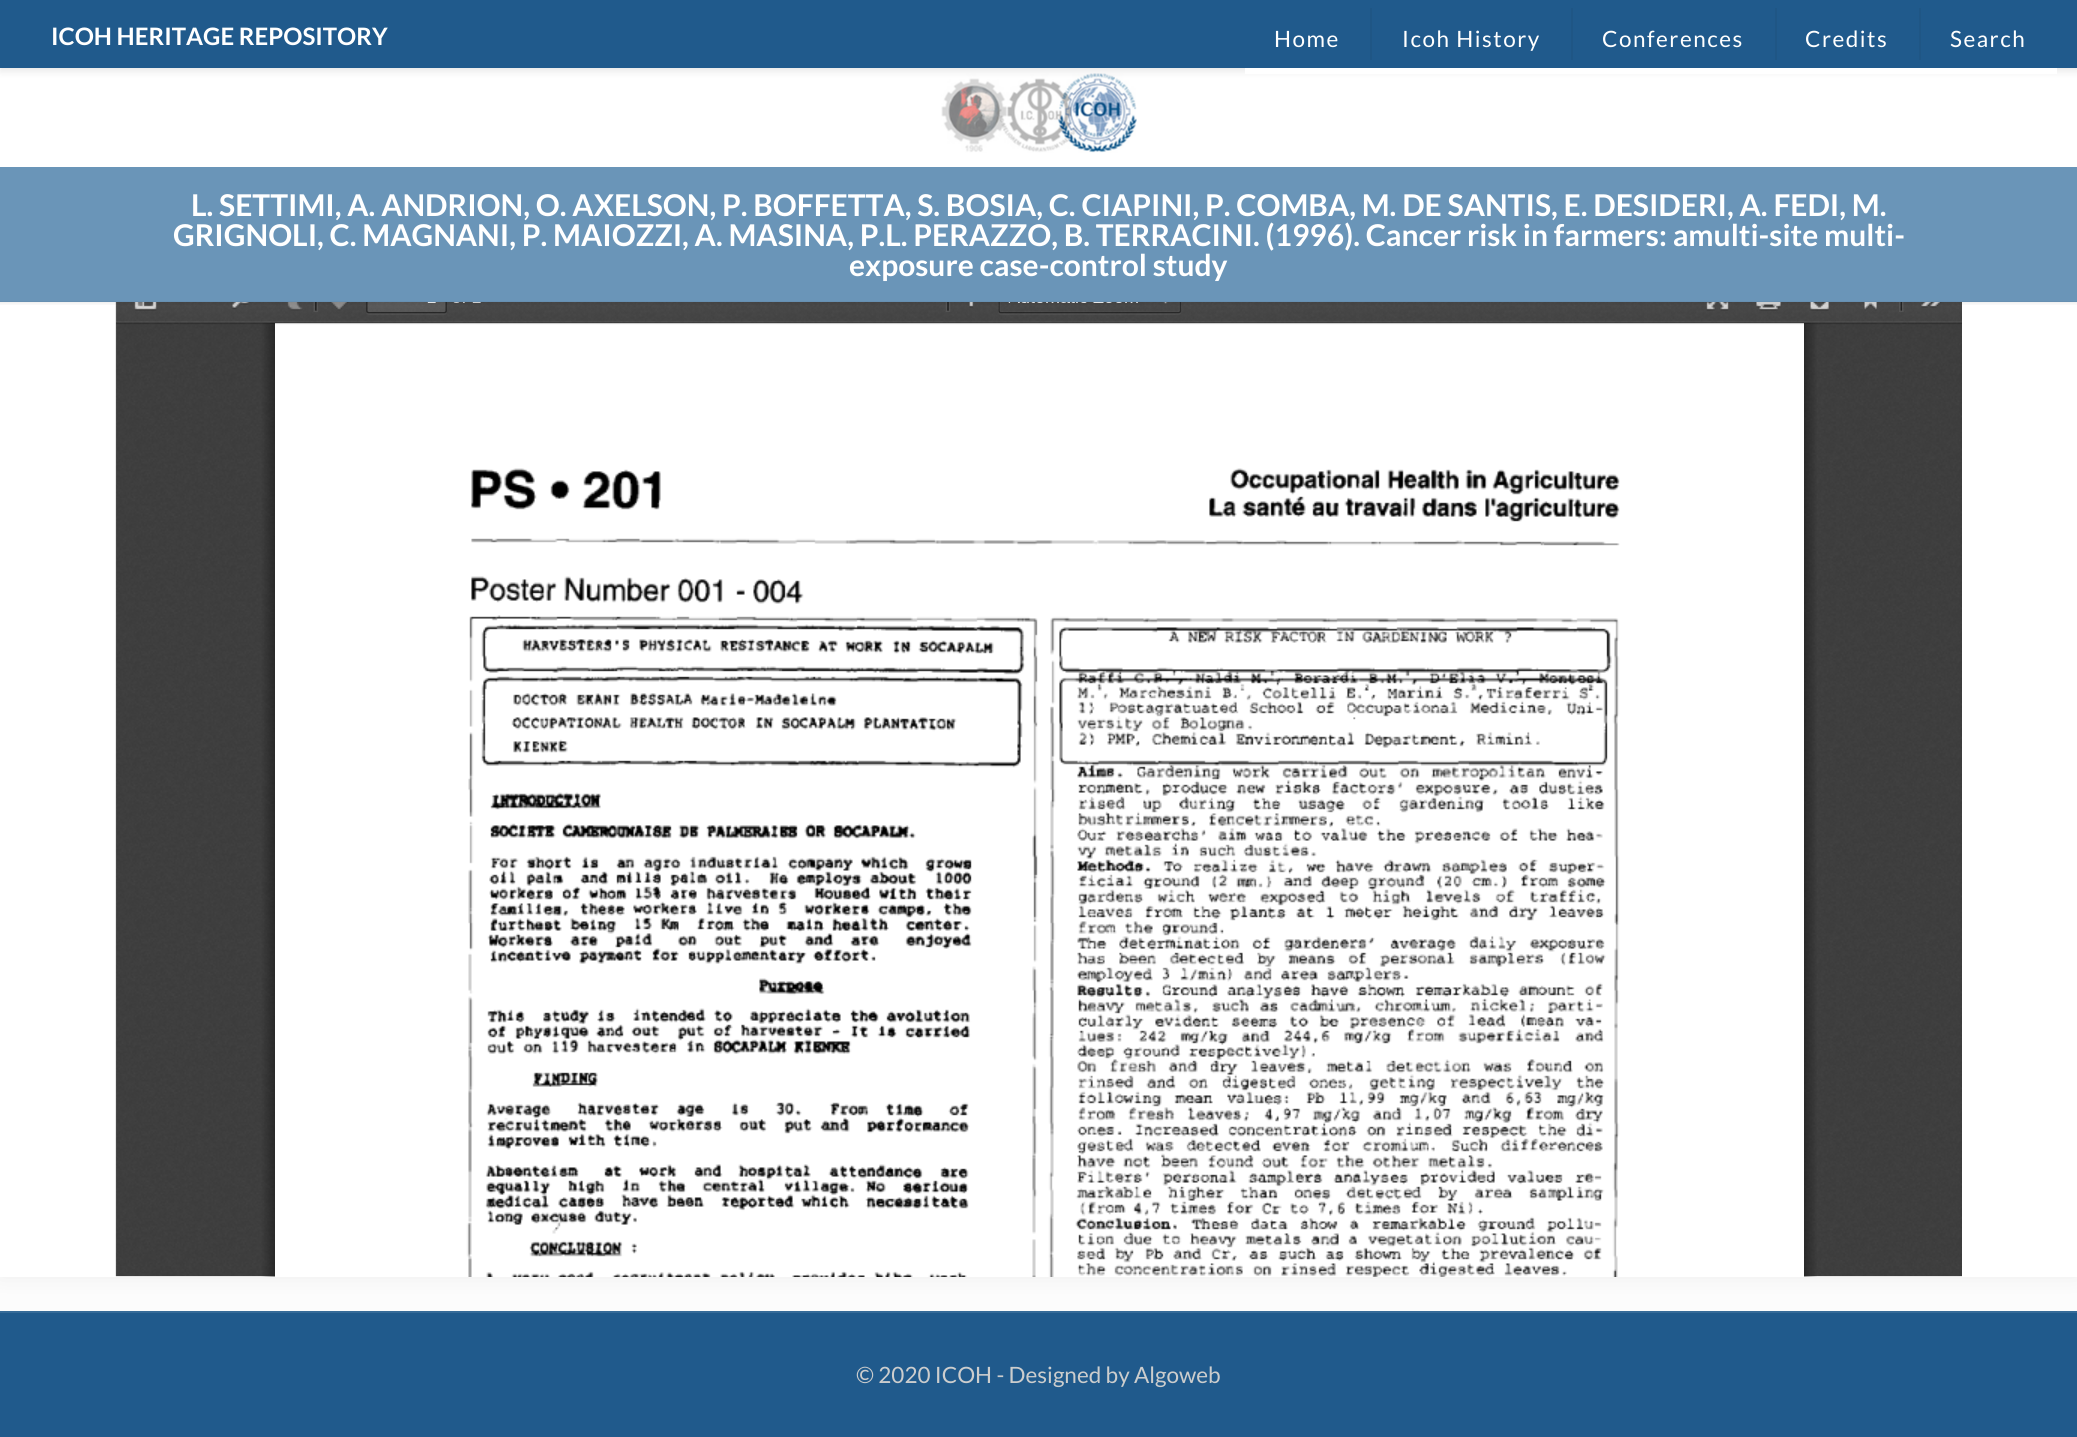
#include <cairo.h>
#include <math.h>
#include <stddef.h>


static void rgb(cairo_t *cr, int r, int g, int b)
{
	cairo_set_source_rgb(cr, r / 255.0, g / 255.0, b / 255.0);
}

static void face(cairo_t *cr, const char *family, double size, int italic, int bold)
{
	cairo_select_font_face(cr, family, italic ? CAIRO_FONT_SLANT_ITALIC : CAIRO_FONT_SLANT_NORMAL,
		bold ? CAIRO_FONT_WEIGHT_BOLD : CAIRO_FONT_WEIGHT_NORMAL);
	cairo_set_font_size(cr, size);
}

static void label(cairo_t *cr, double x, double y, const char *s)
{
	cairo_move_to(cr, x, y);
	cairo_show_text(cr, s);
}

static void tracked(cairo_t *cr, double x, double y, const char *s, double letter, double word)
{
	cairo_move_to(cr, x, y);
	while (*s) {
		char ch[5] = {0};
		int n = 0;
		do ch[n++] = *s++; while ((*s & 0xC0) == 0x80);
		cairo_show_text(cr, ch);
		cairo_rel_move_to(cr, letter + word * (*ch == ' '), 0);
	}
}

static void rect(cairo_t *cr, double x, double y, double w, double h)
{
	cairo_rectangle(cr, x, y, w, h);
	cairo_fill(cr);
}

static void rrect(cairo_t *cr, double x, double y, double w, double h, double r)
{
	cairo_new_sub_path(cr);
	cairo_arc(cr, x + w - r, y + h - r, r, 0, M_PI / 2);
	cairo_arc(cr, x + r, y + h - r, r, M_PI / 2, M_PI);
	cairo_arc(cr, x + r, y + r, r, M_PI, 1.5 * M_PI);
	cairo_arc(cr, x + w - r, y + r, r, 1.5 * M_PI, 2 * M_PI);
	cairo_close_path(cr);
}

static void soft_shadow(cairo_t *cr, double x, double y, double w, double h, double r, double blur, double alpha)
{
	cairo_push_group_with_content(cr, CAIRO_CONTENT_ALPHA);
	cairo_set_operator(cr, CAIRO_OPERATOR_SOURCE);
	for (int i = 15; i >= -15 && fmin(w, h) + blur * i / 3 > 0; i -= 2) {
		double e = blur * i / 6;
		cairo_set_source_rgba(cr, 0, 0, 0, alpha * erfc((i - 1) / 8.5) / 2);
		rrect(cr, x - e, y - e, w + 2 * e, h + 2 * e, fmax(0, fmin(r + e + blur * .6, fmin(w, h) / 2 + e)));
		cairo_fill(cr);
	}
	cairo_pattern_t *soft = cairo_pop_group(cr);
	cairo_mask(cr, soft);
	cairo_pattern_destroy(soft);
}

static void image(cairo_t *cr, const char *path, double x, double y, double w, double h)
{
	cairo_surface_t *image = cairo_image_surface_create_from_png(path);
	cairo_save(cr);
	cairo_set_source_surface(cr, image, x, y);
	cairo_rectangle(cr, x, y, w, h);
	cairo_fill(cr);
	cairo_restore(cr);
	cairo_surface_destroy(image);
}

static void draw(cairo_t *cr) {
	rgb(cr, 252, 252, 252);
	cairo_paint(cr);
	rgb(cr, 0, 0, 0);
	soft_shadow(cr, 0, 0, 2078, 1277, 0, 11, 0.06);
	rgb(cr, 255, 255, 255);
	rect(cr, 0, 302, 2077, 975);
	rect(cr, 0, 68, 2077, 99);
	image(cr, "image0.png", 941, 73, 196, 80);
	rgb(cr, 0, 0, 0);
	soft_shadow(cr, 0, 3, 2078, 68, 0, 4, 0.1);
	rgb(cr, 32, 90, 140);
	rect(cr, 0, 0, 2077, 68);
	face(cr, "Lato", 24, 0, 1);
	rgb(cr, 255, 255, 255);
	label(cr, 51, 45, "ICOH HERITAGE REPOSITORY");
	rgb(cr, 31, 86, 133);
	rect(cr, 1370, 8, 2, 52);
	face(cr, "Lato", 22.5, 0, 0);
	rgb(cr, 255, 255, 255);
	tracked(cr, 1274, 47, "Home", 1.5, 0);
	rect(cr, 1245, 68, 812, 6);
	rgb(cr, 31, 86, 133);
	rect(cr, 1571, 8, 2, 52);
	rgb(cr, 255, 255, 255);
	tracked(cr, 1402, 47, "Icoh History", 1.5, 0);
	rgb(cr, 31, 86, 133);
	rect(cr, 1775, 8, 2, 52);
	rgb(cr, 255, 255, 255);
	tracked(cr, 1602, 47, "Conferences", 1.5, 0);
	rgb(cr, 31, 86, 133);
	rect(cr, 1919, 8, 2, 52);
	rgb(cr, 255, 255, 255);
	tracked(cr, 1805, 47, "Credits", 1.5, 0);
	tracked(cr, 1950, 47, "Search", 1.5, 0);
	rgb(cr, 106, 149, 184);
	rect(cr, 0, 167, 2077, 135);
	face(cr, "Lato", 30, 0, 1);
	rgb(cr, 255, 255, 255);
	label(cr, 191, 216, "L. SETTIMI, A. ANDRION, O. AXELSON, P. BOFFETTA, S. BOSIA, C. CIAPINI, P. COMBA, M. DE SANTIS, E. DESIDERI, A. FEDI, M.");
	label(cr, 173, 246, "GRIGNOLI, C. MAGNANI, P. MAIOZZI, A. MASINA, P.L. PERAZZO, B. TERRACINI. (1996). Cancer risk in farmers: amulti-site multi-");
	label(cr, 849, 276, "exposure case-control study");
	image(cr, "image2.png", 115, 302, 1847, 975);
	image(cr, "image1.png", 0, 301, 2077, 4);
	rgb(cr, 32, 90, 140);
	rect(cr, 0, 1313, 2077, 124);
	rgb(cr, 54, 107, 152);
	rect(cr, 0, 1311, 2077, 2);
	face(cr, "Lato", 22.5, 0, 0);
	rgb(cr, 204, 205, 205);
	label(cr, 856, 1383, "© 2020 ICOH - Designed by Algoweb");
}

int main(void) {
	cairo_surface_t *surface = cairo_image_surface_create(CAIRO_FORMAT_RGB24, 2077, 1437);
	cairo_t *cr = cairo_create(surface);
	cairo_font_options_t *options = cairo_font_options_create();
	cairo_font_options_set_hint_metrics(options, CAIRO_HINT_METRICS_OFF);
	cairo_font_options_set_hint_style(options, CAIRO_HINT_STYLE_NONE);
	cairo_set_font_options(cr, options);
	cairo_set_miter_limit(cr, 4);
	draw(cr);
	cairo_surface_write_to_png(surface, "render.png");
	cairo_font_options_destroy(options);
	cairo_destroy(cr);
	cairo_surface_destroy(surface);
	return 0;
}
